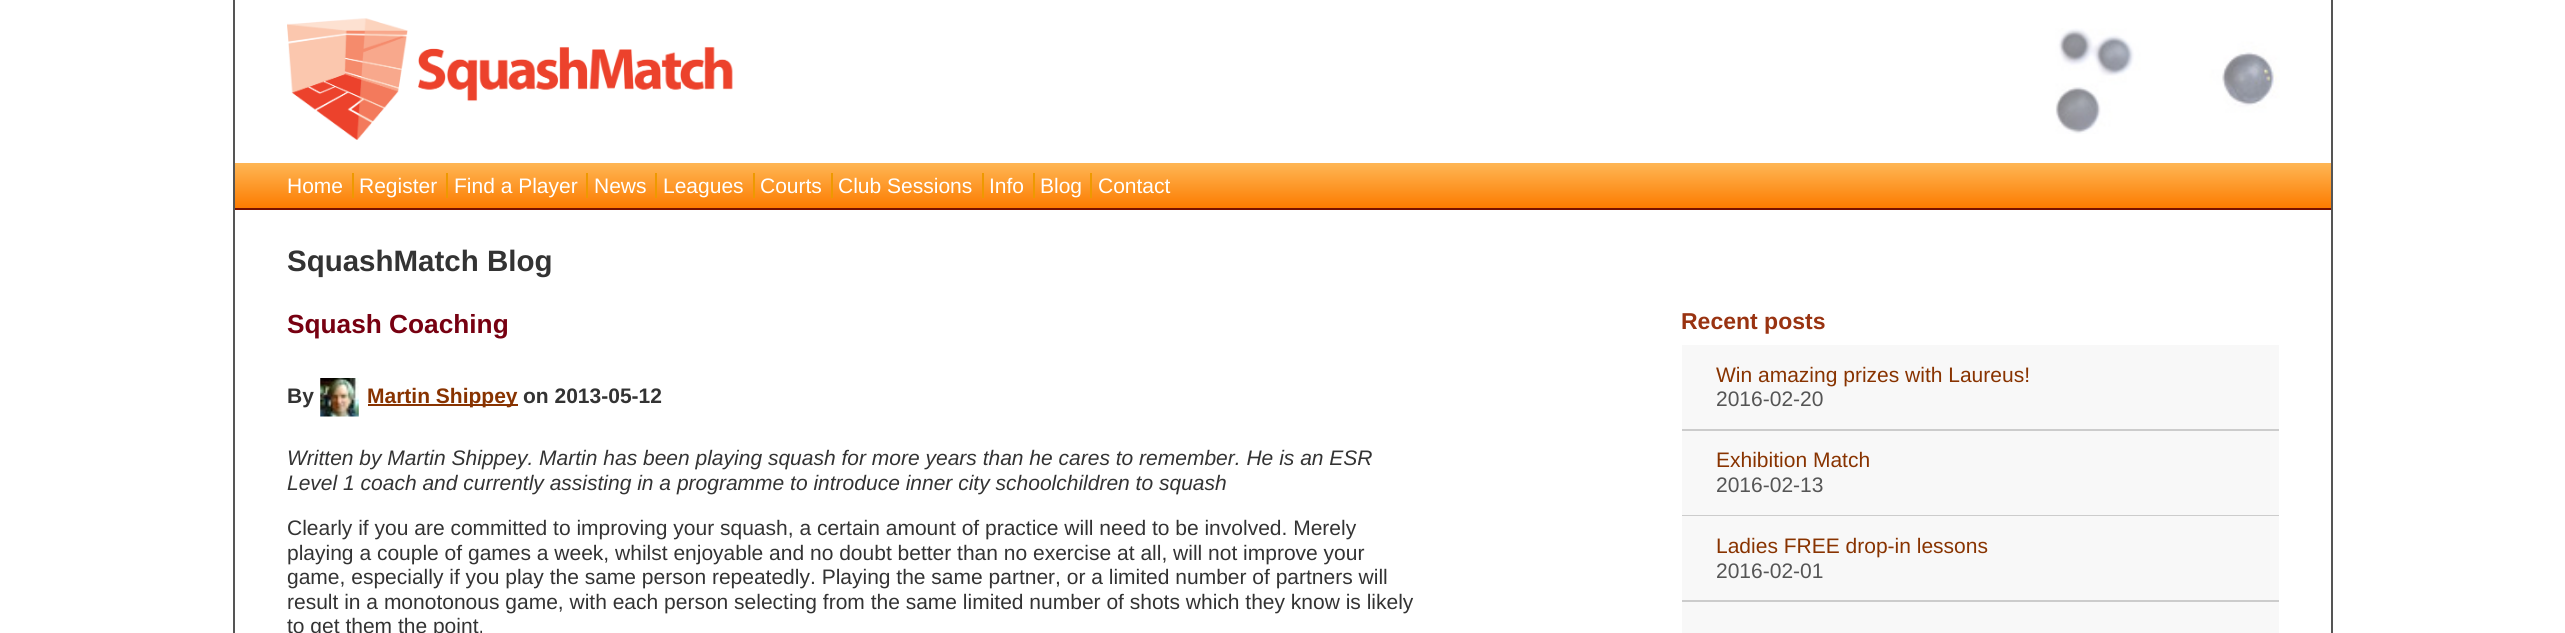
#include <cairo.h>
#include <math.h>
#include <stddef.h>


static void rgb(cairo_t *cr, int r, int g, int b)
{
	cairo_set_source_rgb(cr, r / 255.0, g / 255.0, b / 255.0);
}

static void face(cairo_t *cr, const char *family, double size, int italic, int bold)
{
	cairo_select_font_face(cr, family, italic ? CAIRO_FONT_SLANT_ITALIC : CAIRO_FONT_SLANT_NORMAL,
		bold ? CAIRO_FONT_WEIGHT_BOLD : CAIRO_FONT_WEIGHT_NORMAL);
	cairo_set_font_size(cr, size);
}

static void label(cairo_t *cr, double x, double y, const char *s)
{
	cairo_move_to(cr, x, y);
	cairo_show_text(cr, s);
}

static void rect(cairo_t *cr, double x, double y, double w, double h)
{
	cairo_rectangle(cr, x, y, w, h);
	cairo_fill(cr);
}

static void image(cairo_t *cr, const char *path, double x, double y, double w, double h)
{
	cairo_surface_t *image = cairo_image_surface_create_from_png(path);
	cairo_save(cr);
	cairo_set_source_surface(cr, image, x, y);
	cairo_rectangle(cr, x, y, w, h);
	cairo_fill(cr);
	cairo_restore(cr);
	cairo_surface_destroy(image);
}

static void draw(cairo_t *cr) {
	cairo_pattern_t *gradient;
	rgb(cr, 255, 255, 255);
	cairo_paint(cr);
	rgb(cr, 85, 85, 85);
	rect(cr, 2331, 0, 2, 633);
	rect(cr, 233, 0, 2, 633);
	image(cr, "image0.png", 2055, 28, 225, 106);
	image(cr, "image1.png", 287, 18, 446, 122);
	gradient = cairo_pattern_create_linear(1283, 208, 1283, 163);
	cairo_pattern_add_color_stop_rgba(gradient, 0, 0.992, 0.486, 0, 1);
	cairo_pattern_add_color_stop_rgba(gradient, 1, 0.996, 0.714, 0.333, 1);
	cairo_set_source(cr, gradient);
	cairo_pattern_destroy(gradient);
	rect(cr, 235, 163, 2096, 45);
	rgb(cr, 119, 17, 0);
	rect(cr, 235, 208, 2096, 2);
	face(cr, "Liberation Sans", 21, 0, 0);
	rgb(cr, 255, 255, 255);
	label(cr, 287, 193, "Home");
	rgb(cr, 238, 153, 0);
	rect(cr, 352, 173, 2, 25);
	rgb(cr, 255, 255, 255);
	label(cr, 359, 193, "Register");
	rgb(cr, 238, 153, 0);
	rect(cr, 446, 173, 2, 25);
	rgb(cr, 255, 255, 255);
	label(cr, 454, 193, "Find a Player");
	rgb(cr, 238, 153, 0);
	rect(cr, 586, 173, 2, 25);
	rgb(cr, 255, 255, 255);
	label(cr, 594, 193, "News");
	rgb(cr, 238, 153, 0);
	rect(cr, 655, 173, 2, 25);
	rgb(cr, 255, 255, 255);
	label(cr, 663, 193, "Leagues");
	rgb(cr, 238, 153, 0);
	rect(cr, 753, 173, 2, 25);
	rgb(cr, 255, 255, 255);
	label(cr, 760, 193, "Courts");
	rgb(cr, 238, 153, 0);
	rect(cr, 831, 173, 2, 25);
	rgb(cr, 255, 255, 255);
	label(cr, 838, 193, "Club Sessions");
	rgb(cr, 238, 153, 0);
	rect(cr, 982, 173, 2, 25);
	rgb(cr, 255, 255, 255);
	label(cr, 989, 193, "Info");
	rgb(cr, 238, 153, 0);
	rect(cr, 1033, 173, 2, 25);
	rgb(cr, 255, 255, 255);
	label(cr, 1040, 193, "Blog");
	rgb(cr, 238, 153, 0);
	rect(cr, 1090, 173, 2, 25);
	rgb(cr, 255, 255, 255);
	label(cr, 1098, 193, "Contact");
	face(cr, "Liberation Sans", 29.5, 0, 1);
	rgb(cr, 51, 51, 51);
	label(cr, 287, 271, "SquashMatch Blog");
	face(cr, "Liberation Sans", 26.25, 0, 1);
	rgb(cr, 119, 0, 17);
	label(cr, 287, 333, "Squash Coaching");
	face(cr, "Liberation Sans", 21, 0, 1);
	rgb(cr, 51, 51, 51);
	label(cr, 287, 403, "By");
	image(cr, "image2.png", 320, 378, 39, 39);
	rgb(cr, 136, 51, 0);
	rect(cr, 368, 404, 150, 2);
	label(cr, 367, 403, "Martin Shippey");
	rgb(cr, 51, 51, 51);
	label(cr, 523, 403, "on 2013-05-12");
	face(cr, "Liberation Sans", 21, 1, 0);
	label(cr, 287, 465, "Written by Martin Shippey. Martin has been playing squash for more years than he cares to remember. He is an ESR");
	label(cr, 287, 490, "Level 1 coach and currently assisting in a programme to introduce inner city schoolchildren to squash");
	face(cr, "Liberation Sans", 21, 0, 0);
	label(cr, 287, 535, "Clearly if you are committed to improving your squash, a certain amount of practice will need to be involved. Merely");
	label(cr, 287, 560, "playing a couple of games a week, whilst enjoyable and no doubt better than no exercise at all, will not improve your");
	label(cr, 287, 584, "game, especially if you play the same person repeatedly. Playing the same partner, or a limited number of partners will");
	label(cr, 287, 609, "result in a monotonous game, with each person selecting from the same limited number of shots which they know is likely");
	label(cr, 287, 633, "to get them the point.");
	face(cr, "Liberation Sans", 23, 0, 1);
	rgb(cr, 153, 51, 17);
	label(cr, 1681, 329, "Recent posts");
	rgb(cr, 248, 248, 248);
	rect(cr, 1682, 345, 597, 84);
	rgb(cr, 204, 204, 204);
	rect(cr, 1682, 429, 597, 2);
	face(cr, "Liberation Sans", 21, 0, 0);
	rgb(cr, 136, 51, 0);
	label(cr, 1716, 382, "Win amazing prizes with Laureus!");
	rgb(cr, 85, 85, 85);
	label(cr, 1716, 406, "2016-02-20");
	rgb(cr, 248, 248, 248);
	rect(cr, 1682, 431, 597, 84);
	rgb(cr, 204, 204, 204);
	rect(cr, 1682, 515, 597, 1);
	rgb(cr, 136, 51, 0);
	label(cr, 1716, 467, "Exhibition Match");
	rgb(cr, 85, 85, 85);
	label(cr, 1716, 492, "2016-02-13");
	rgb(cr, 248, 248, 248);
	rect(cr, 1682, 516, 597, 84);
	rgb(cr, 204, 204, 204);
	rect(cr, 1682, 600, 597, 2);
	rgb(cr, 136, 51, 0);
	label(cr, 1716, 553, "Ladies FREE drop-in lessons");
	rgb(cr, 85, 85, 85);
	label(cr, 1716, 578, "2016-02-01");
	rgb(cr, 248, 248, 248);
	rect(cr, 1682, 602, 597, 31);
}

int main(void) {
	cairo_surface_t *surface = cairo_image_surface_create(CAIRO_FORMAT_RGB24, 2565, 633);
	cairo_t *cr = cairo_create(surface);
	cairo_font_options_t *options = cairo_font_options_create();
	cairo_font_options_set_hint_metrics(options, CAIRO_HINT_METRICS_OFF);
	cairo_font_options_set_hint_style(options, CAIRO_HINT_STYLE_NONE);
	cairo_set_font_options(cr, options);
	cairo_set_miter_limit(cr, 4);
	draw(cr);
	cairo_surface_write_to_png(surface, "render.png");
	cairo_font_options_destroy(options);
	cairo_destroy(cr);
	cairo_surface_destroy(surface);
	return 0;
}
